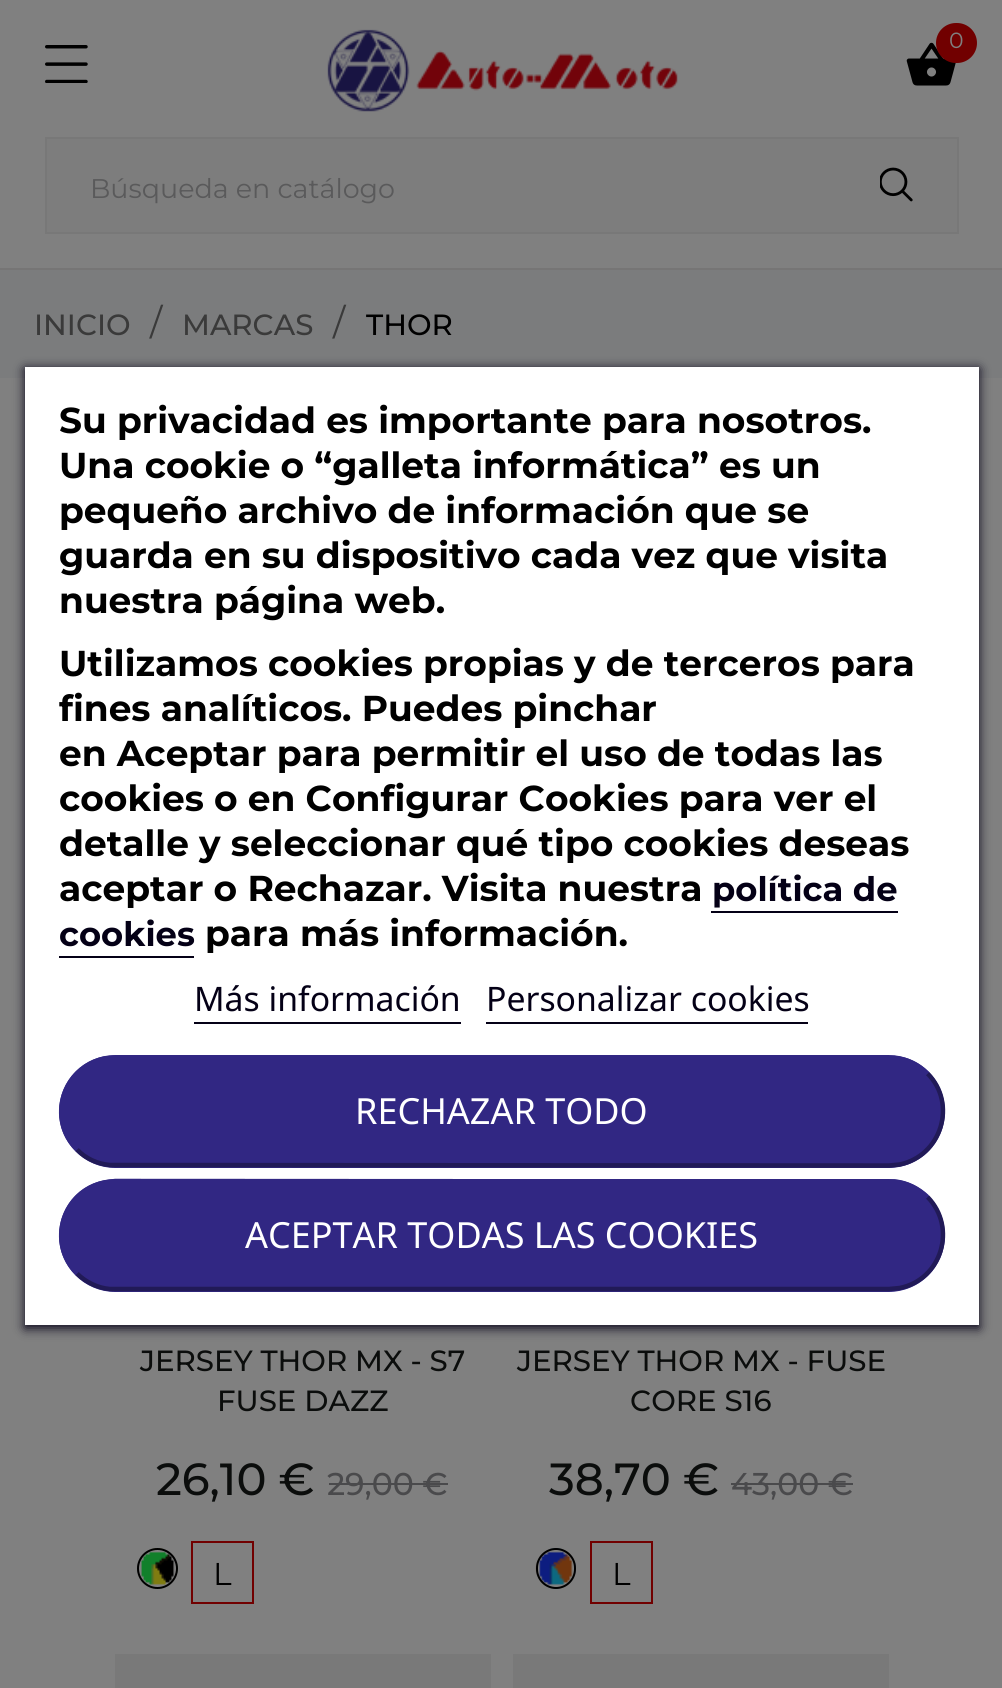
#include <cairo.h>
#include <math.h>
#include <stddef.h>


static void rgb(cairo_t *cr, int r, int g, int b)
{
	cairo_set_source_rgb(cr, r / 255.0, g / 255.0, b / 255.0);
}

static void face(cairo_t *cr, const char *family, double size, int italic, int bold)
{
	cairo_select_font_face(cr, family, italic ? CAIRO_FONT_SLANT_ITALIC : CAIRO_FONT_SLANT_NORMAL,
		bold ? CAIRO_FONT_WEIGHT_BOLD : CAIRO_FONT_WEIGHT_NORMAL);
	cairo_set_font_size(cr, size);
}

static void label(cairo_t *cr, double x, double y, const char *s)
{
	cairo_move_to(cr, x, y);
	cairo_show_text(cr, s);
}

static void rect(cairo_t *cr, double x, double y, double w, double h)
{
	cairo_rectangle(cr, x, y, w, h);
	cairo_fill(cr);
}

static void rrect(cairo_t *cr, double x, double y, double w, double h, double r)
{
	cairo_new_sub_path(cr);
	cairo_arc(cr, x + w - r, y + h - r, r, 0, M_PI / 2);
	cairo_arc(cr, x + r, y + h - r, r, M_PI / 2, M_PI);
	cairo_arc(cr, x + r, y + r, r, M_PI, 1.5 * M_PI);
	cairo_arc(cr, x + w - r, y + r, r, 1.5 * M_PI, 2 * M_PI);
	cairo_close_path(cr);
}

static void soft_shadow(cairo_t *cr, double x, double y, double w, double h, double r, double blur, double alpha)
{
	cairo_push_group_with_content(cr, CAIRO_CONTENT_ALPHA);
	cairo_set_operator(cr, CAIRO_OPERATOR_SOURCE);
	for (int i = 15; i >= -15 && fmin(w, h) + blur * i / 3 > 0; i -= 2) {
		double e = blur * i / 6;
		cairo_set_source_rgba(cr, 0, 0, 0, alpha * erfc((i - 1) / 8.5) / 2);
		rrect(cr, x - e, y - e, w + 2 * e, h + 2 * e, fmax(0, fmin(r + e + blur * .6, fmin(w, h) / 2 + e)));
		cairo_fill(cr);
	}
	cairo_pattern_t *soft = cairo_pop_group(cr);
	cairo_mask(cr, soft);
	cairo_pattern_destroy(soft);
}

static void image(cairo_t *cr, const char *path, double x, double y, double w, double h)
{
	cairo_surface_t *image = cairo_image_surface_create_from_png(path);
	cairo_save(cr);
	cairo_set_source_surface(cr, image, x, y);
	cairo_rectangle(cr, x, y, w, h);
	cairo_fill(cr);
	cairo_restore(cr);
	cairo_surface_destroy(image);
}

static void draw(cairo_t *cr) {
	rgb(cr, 128, 128, 128);
	cairo_paint(cr);
	rgb(cr, 118, 117, 117);
	rect(cr, 0, 268, 1002, 2);
	image(cr, "image0.png", 327, 29, 351, 83);
	image(cr, "image1.png", 906, 42, 50, 44);
	rgb(cr, 113, 0, 0);
	rrect(cr, 936, 23, 41, 40, 20);
	cairo_fill(cr);
	face(cr, "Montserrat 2 Thin", 22, 0, 0);
	rgb(cr, 128, 128, 128);
	label(cr, 949, 48, "0");
	image(cr, "image2.png", 45, 45, 43, 38);
	rgb(cr, 125, 125, 125);
	cairo_rectangle(cr, 46, 138, 912, 95);
	cairo_fill_preserve(cr);
	rgb(cr, 120, 120, 120);
	cairo_stroke(cr);
	face(cr, "Montserrat 2 Thin", 27, 0, 0);
	rgb(cr, 90, 90, 91);
	label(cr, 90, 198, "Búsqueda en catálogo");
	image(cr, "image3.png", 880, 167, 33, 35);
	rgb(cr, 123, 124, 125);
	rect(cr, 0, 270, 1002, 108);
	face(cr, "Montserrat Thin", 29.25, 0, 0);
	rgb(cr, 58, 58, 58);
	label(cr, 34, 335, "INICIO");
	face(cr, "Montserrat 2 Thin", 36, 0, 0);
	label(cr, 150, 335, "/");
	face(cr, "Montserrat Thin", 29.25, 0, 0);
	label(cr, 182, 335, "MARCAS");
	face(cr, "Montserrat 2 Thin", 36, 0, 0);
	label(cr, 333, 335, "/");
	face(cr, "Montserrat Thin", 29.25, 0, 0);
	rgb(cr, 0, 0, 0);
	label(cr, 366, 335, "THOR");
	rgb(cr, 4, 0, 22);
	soft_shadow(cr, 25, 369, 954, 959, 0, 5.5, 1);
	rgb(cr, 255, 255, 255);
	rect(cr, 25, 367, 954, 958);
	face(cr, "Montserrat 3 Thin", 36, 0, 0);
	rgb(cr, 0, 0, 0);
	label(cr, 59, 433, "Su privacidad es importante para nosotros.");
	label(cr, 59, 478, "Una cookie o “galleta informática” es un");
	label(cr, 59, 523, "pequeño archivo de información que se");
	label(cr, 59, 568, "guarda en su dispositivo cada vez que visita");
	label(cr, 59, 613, "nuestra página web.");
	label(cr, 59, 676, "Utilizamos cookies propias y de terceros para");
	label(cr, 59, 721, "fines analíticos. Puedes pinchar");
	label(cr, 59, 766, "en Aceptar para permitir el uso de todas las");
	label(cr, 59, 811, "cookies o en Configurar Cookies para ver el");
	label(cr, 59, 856, "detalle y seleccionar qué tipo cookies deseas");
	label(cr, 59, 901, "aceptar o Rechazar. Visita nuestra");
	face(cr, "Montserrat 3 Thin", 33.75, 0, 0);
	rgb(cr, 4, 0, 22);
	label(cr, 712, 901, "política de");
	rect(cr, 711, 911, 187, 2);
	label(cr, 59, 946, "cookies");
	rect(cr, 59, 956, 135, 2);
	face(cr, "Montserrat 3 Thin", 36, 0, 0);
	rgb(cr, 0, 0, 0);
	label(cr, 205, 946, "para más información.");
	face(cr, "Noto Sans", 33.75, 0, 0);
	rgb(cr, 4, 0, 22);
	label(cr, 194, 1011, "Más información");
	rect(cr, 194, 1022, 267, 2);
	label(cr, 486, 1011, "Personalizar cookies");
	rect(cr, 486, 1022, 322, 2);
	rgb(cr, 49, 39, 131);
	rrect(cr, 59, 1055, 886, 113, 56.5);
	cairo_fill(cr);
	cairo_new_path(cr);
	cairo_move_to(cr, 927.5, 1073.5);
	cairo_curve_to(cr, 957.5, 1103.5, 941.5, 1156, 899.5, 1164.5);
	cairo_line_to(cr, 889, 1165.5);
	cairo_line_to(cr, 110, 1165);
	cairo_curve_to(cr, 97.5, 1164, 85.5, 1158.5, 77, 1149.5);
	rgb(cr, 33, 26, 87);
	cairo_set_line_width(cr, 4.5);
	cairo_stroke(cr);
	cairo_new_path(cr);
	cairo_move_to(cr, 77, 1149.5);
	cairo_curve_to(cr, 46.5, 1119.5, 62.5, 1067, 104.5, 1058.5);
	cairo_line_to(cr, 115, 1057.5);
	cairo_line_to(cr, 894.5, 1058);
	cairo_curve_to(cr, 907, 1059, 918.5, 1064.5, 927.5, 1073.5);
	rgb(cr, 49, 39, 131);
	cairo_stroke(cr);
	face(cr, "Noto Sans", 36, 0, 0);
	rgb(cr, 255, 255, 255);
	label(cr, 355, 1124, "RECHAZAR TODO");
	rgb(cr, 49, 39, 131);
	rrect(cr, 59, 1179, 886, 113, 56.5);
	cairo_fill(cr);
	cairo_new_path(cr);
	cairo_move_to(cr, 927.5, 1197);
	cairo_curve_to(cr, 957.5, 1227.5, 941.5, 1280, 899.5, 1288);
	cairo_line_to(cr, 889, 1289);
	cairo_line_to(cr, 110, 1289);
	cairo_curve_to(cr, 97.5, 1288, 85.5, 1282, 77, 1273.5);
	rgb(cr, 33, 26, 87);
	cairo_stroke(cr);
	cairo_new_path(cr);
	cairo_move_to(cr, 77, 1273.5);
	cairo_curve_to(cr, 46.5, 1243, 62.5, 1190.5, 104.5, 1182.5);
	cairo_line_to(cr, 115, 1181);
	cairo_line_to(cr, 894.5, 1181.5);
	cairo_curve_to(cr, 907, 1182.5, 918.5, 1188.5, 927.5, 1197);
	rgb(cr, 49, 39, 131);
	cairo_stroke(cr);
	rgb(cr, 255, 255, 255);
	label(cr, 245, 1248, "ACEPTAR TODAS LAS COOKIES");
	face(cr, "Montserrat Thin", 29.25, 0, 0);
	rgb(cr, 11, 13, 12);
	label(cr, 140, 1371, "JERSEY THOR MX - S7");
	label(cr, 217, 1411, "FUSE DAZZ");
	face(cr, "Montserrat Thin", 45, 0, 0);
	label(cr, 156, 1495, "26,10 €");
	face(cr, "Montserrat Thin", 31.5, 0, 0);
	rgb(cr, 74, 74, 76);
	label(cr, 327, 1495, "29,00 €");
	rect(cr, 329, 1483, 119, 2);
	image(cr, "image4.png", 137, 1548, 41, 41);
	cairo_arc(cr, 157.5, 1568.5, 19.5, 0, 2 * M_PI);
	rgb(cr, 0, 0, 0);
	cairo_set_line_width(cr, 2);
	cairo_stroke(cr);
	cairo_rectangle(cr, 192, 1542, 61, 61);
	rgb(cr, 113, 0, 0);
	cairo_stroke(cr);
	face(cr, "Montserrat 2 Thin", 31.5, 0, 0);
	rgb(cr, 0, 0, 0);
	label(cr, 213, 1585, "L");
	rgb(cr, 121, 121, 121);
	rect(cr, 115, 1654, 376, 34);
	face(cr, "Montserrat Thin", 29.25, 0, 0);
	rgb(cr, 11, 13, 12);
	label(cr, 517, 1371, "JERSEY THOR MX - FUSE");
	label(cr, 630, 1411, "CORE S16");
	face(cr, "Montserrat Thin", 45, 0, 0);
	label(cr, 549, 1495, "38,70 €");
	face(cr, "Montserrat Thin", 31.5, 0, 0);
	rgb(cr, 74, 74, 76);
	label(cr, 731, 1495, "43,00 €");
	rect(cr, 731, 1483, 122, 2);
	image(cr, "image5.png", 535, 1548, 41, 41);
	rrect(cr, 537, 1549, 38, 39, 19);
	rgb(cr, 0, 0, 0);
	cairo_stroke(cr);
	cairo_rectangle(cr, 591, 1542, 61, 61);
	rgb(cr, 113, 0, 0);
	cairo_stroke(cr);
	face(cr, "Montserrat 2 Thin", 31.5, 0, 0);
	rgb(cr, 0, 0, 0);
	label(cr, 612, 1585, "L");
	rgb(cr, 121, 121, 121);
	rect(cr, 513, 1654, 376, 34);
}

int main(void) {
	cairo_surface_t *surface = cairo_image_surface_create(CAIRO_FORMAT_RGB24, 1002, 1688);
	cairo_t *cr = cairo_create(surface);
	cairo_font_options_t *options = cairo_font_options_create();
	cairo_font_options_set_hint_metrics(options, CAIRO_HINT_METRICS_OFF);
	cairo_font_options_set_hint_style(options, CAIRO_HINT_STYLE_NONE);
	cairo_set_font_options(cr, options);
	cairo_set_miter_limit(cr, 4);
	draw(cr);
	cairo_surface_write_to_png(surface, "render.png");
	cairo_font_options_destroy(options);
	cairo_destroy(cr);
	cairo_surface_destroy(surface);
	return 0;
}
